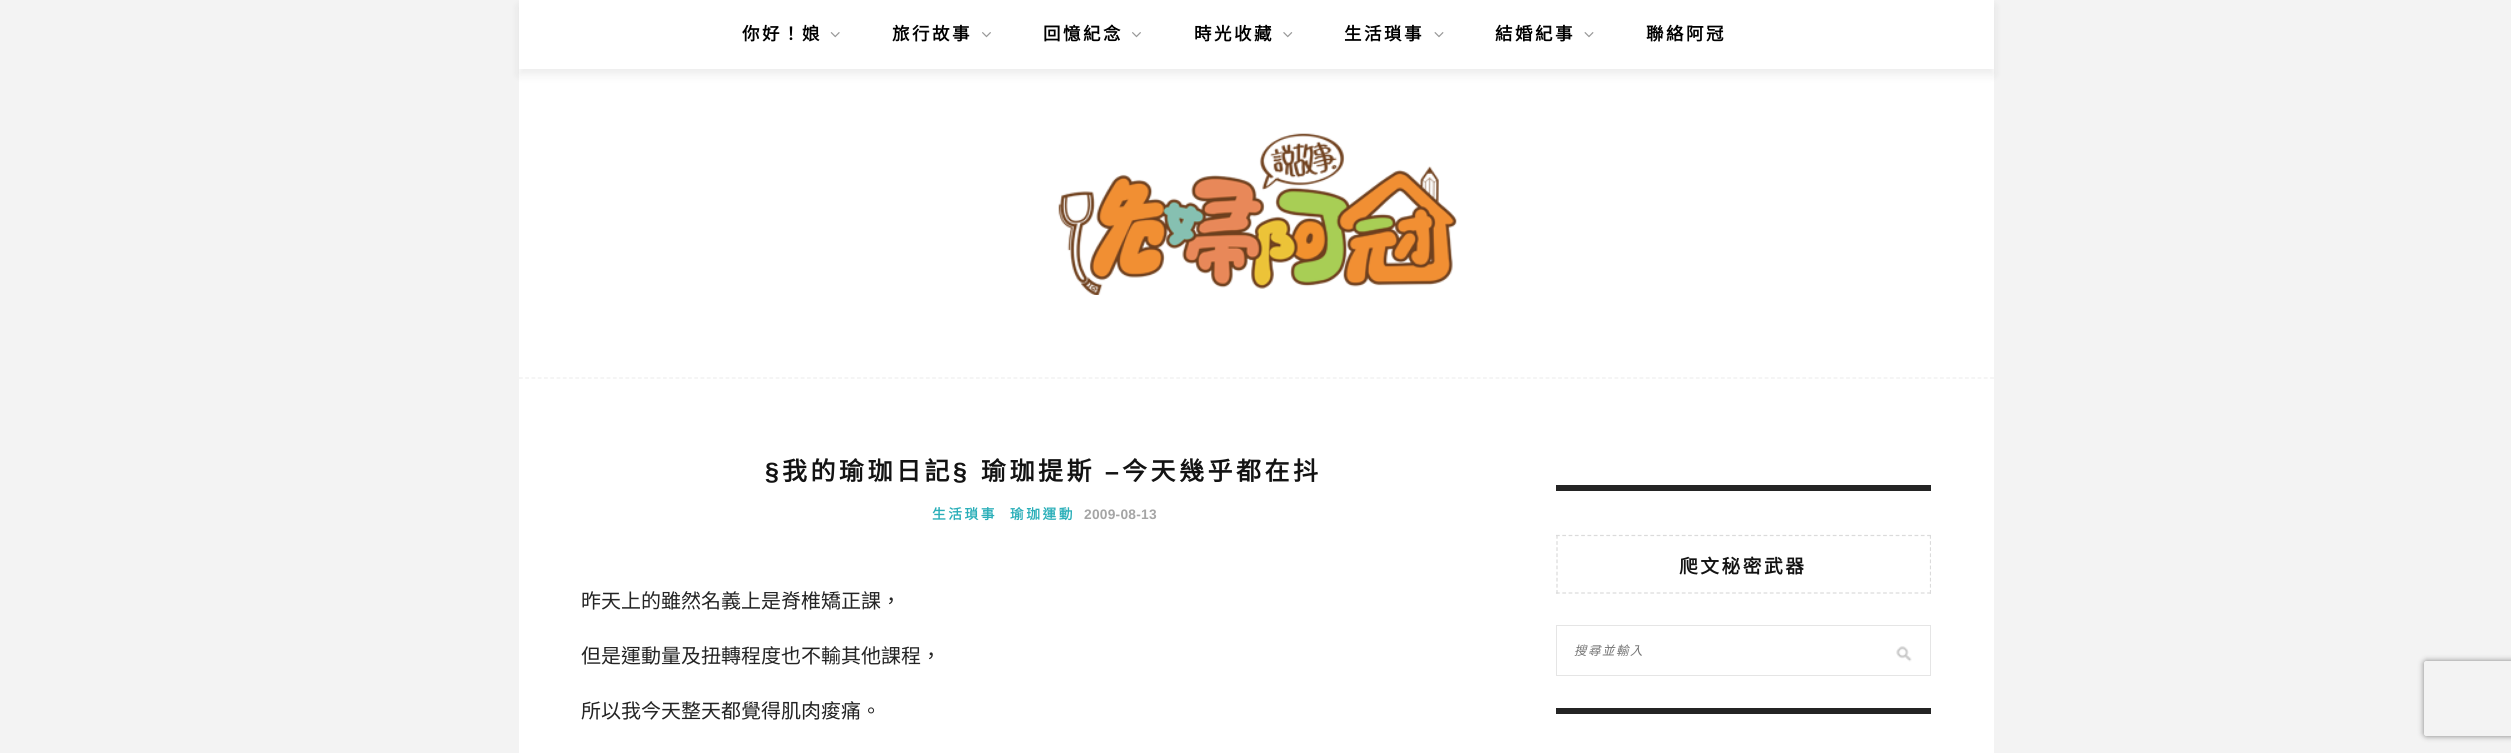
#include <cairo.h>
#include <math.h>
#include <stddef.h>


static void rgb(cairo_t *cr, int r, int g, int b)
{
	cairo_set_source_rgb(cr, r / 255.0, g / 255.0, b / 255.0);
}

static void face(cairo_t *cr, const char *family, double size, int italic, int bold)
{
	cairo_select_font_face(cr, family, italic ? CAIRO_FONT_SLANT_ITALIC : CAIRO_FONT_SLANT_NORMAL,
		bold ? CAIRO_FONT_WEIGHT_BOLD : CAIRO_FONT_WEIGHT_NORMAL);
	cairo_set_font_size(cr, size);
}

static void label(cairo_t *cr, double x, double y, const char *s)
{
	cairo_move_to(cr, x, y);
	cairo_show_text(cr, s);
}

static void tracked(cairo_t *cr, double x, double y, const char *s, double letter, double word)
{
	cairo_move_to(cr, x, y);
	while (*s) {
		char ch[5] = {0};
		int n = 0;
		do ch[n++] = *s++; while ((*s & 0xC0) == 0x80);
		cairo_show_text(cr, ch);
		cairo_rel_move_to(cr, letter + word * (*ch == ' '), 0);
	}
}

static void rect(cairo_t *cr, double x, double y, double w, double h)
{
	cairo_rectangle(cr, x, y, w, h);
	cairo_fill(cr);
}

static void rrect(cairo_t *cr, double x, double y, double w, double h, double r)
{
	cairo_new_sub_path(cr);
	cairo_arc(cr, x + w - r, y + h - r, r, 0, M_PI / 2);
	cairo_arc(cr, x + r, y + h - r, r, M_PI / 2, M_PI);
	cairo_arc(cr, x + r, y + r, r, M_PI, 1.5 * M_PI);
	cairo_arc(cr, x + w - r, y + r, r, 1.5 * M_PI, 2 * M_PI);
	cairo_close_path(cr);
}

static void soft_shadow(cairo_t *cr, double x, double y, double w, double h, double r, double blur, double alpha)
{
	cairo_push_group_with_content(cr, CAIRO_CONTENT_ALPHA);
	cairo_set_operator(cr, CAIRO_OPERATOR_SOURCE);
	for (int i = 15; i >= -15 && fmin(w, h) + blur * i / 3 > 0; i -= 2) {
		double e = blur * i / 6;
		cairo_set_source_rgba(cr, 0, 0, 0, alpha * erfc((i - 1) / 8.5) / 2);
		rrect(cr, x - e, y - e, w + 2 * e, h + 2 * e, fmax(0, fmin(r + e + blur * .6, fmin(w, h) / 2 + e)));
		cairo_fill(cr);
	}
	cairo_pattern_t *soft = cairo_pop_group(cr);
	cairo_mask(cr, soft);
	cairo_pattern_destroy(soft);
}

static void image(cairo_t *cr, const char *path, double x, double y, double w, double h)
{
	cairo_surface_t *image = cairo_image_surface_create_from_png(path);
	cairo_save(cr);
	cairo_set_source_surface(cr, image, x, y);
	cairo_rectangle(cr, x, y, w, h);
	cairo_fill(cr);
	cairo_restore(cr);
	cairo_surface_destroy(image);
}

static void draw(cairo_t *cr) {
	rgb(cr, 243, 243, 243);
	cairo_paint(cr);
	rgb(cr, 255, 255, 255);
	rect(cr, 519, 69, 1475, 684);
	rgb(cr, 22, 22, 22);
	soft_shadow(cr, 519, 6, 1475, 69, 0, 5, 0.08);
	rgb(cr, 255, 255, 255);
	rect(cr, 519, 0, 1475, 69);
	face(cr, "Noto Sans CJK TC", 17.5, 0, 1);
	rgb(cr, 0, 0, 0);
	tracked(cr, 742, 40, "你好！娘", 2.5, 0);
	image(cr, "image0.png", 830, 32, 10, 6);
	tracked(cr, 892, 40, "旅行故事", 2.5, 0);
	image(cr, "image1.png", 982, 32, 9, 6);
	tracked(cr, 1043, 40, "回憶紀念", 2.5, 0);
	image(cr, "image1.png", 1132, 32, 9, 6);
	tracked(cr, 1194, 40, "時光收藏", 2.5, 0);
	image(cr, "image2.png", 1283, 32, 10, 6);
	tracked(cr, 1344, 40, "生活瑣事", 2.5, 0);
	image(cr, "image3.png", 1434, 32, 10, 6);
	tracked(cr, 1495, 40, "結婚紀事", 2.5, 0);
	image(cr, "image3.png", 1584, 32, 10, 6);
	tracked(cr, 1646, 40, "聯絡阿冠", 2.5, 0);
	cairo_new_path(cr);
	cairo_move_to(cr, 519, 378);
	cairo_line_to(cr, 1994, 378);
	rgb(cr, 238, 238, 238);
	cairo_set_line_width(cr, 1.2);
	cairo_set_dash(cr, (double[]){3.75, 2.51}, 2, 0);
	cairo_stroke(cr);
	image(cr, "image4.png", 1058, 133, 399, 162);
	face(cr, "Liberation Sans", 25, 0, 1);
	rgb(cr, 19, 19, 19);
	tracked(cr, 765, 480, "§", 3.5, 0);
	face(cr, "Noto Sans CJK TC", 25, 0, 1);
	tracked(cr, 782, 480, "我的瑜珈日記", 3.5, 0);
	face(cr, "Liberation Sans", 25, 0, 1);
	tracked(cr, 953, 480, "§", 3.5, 0);
	face(cr, "Noto Sans CJK TC", 25, 0, 1);
	tracked(cr, 981, 480, "瑜珈提斯", 3.5, 0);
	face(cr, "Liberation Sans", 25, 0, 1);
	tracked(cr, 1105, 480, "–", 3.5, 0);
	face(cr, "Noto Sans CJK TC", 25, 0, 1);
	tracked(cr, 1122, 480, "今天幾乎都在抖", 3.5, 0);
	face(cr, "Noto Sans CJK TC", 13.75, 0, 1);
	rgb(cr, 43, 175, 185);
	tracked(cr, 932, 519, "生活瑣事", 2.5, 0);
	tracked(cr, 1010, 519, "瑜珈運動", 2.5, 0);
	face(cr, "Liberation Sans", 13.75, 0, 1);
	rgb(cr, 165, 165, 165);
	tracked(cr, 1084, 519, "2009-08-13", 0.25, 0);
	face(cr, "Noto Sans CJK TC", 20, 0, 0);
	rgb(cr, 36, 36, 36);
	label(cr, 581, 608, "昨天上的雖然名義上是脊椎矯正課，");
	label(cr, 581, 663, "但是運動量及扭轉程度也不輸其他課程，");
	label(cr, 581, 718, "所以我今天整天都覺得肌肉痠痛。");
	rect(cr, 1556, 485, 375, 6);
	rect(cr, 1556, 708, 375, 6);
	cairo_new_path(cr);
	cairo_move_to(cr, 1556, 535.5);
	cairo_line_to(cr, 1931, 535.5);
	rgb(cr, 219, 219, 219);
	cairo_set_dash(cr, (double[]){3.75, 2.54}, 2, 0);
	cairo_stroke(cr);
	cairo_save(cr);
	cairo_rectangle(cr, 581, 454, 1350, 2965);
	cairo_clip(cr);
	cairo_new_path(cr);
	cairo_move_to(cr, 1930.5, 535);
	cairo_line_to(cr, 1930.5, 594);
	cairo_set_dash(cr, (double[]){3.75, 2.36}, 2, 0);
	cairo_stroke(cr);
	cairo_restore(cr);
	cairo_new_path(cr);
	cairo_move_to(cr, 1556, 593);
	cairo_line_to(cr, 1931, 593);
	cairo_stroke(cr);
	cairo_new_path(cr);
	cairo_move_to(cr, 1557, 535);
	cairo_line_to(cr, 1557, 594);
	cairo_set_dash(cr, (double[]){3.75, 2.36}, 2, 0);
	cairo_stroke(cr);
	face(cr, "Noto Sans CJK TC", 18.75, 0, 1);
	rgb(cr, 19, 19, 19);
	tracked(cr, 1679, 573, "爬文秘密武器", 2.5, 0);
	image(cr, "image5.png", 1896, 646, 16, 16);
	cairo_rectangle(cr, 1556.5, 625.5, 374, 50);
	rgb(cr, 229, 229, 229);
	cairo_set_line_width(cr, 1);
	cairo_set_dash(cr, NULL, 0, 0);
	cairo_stroke(cr);
	face(cr, "Noto Sans CJK TC", 12.5, 1, 0);
	rgb(cr, 117, 117, 117);
	tracked(cr, 1574, 655, "搜尋並輸入", 1.5, 0);
	cairo_save(cr);
	cairo_set_fill_rule(cr, CAIRO_FILL_RULE_EVEN_ODD);
	cairo_new_path(cr);
	cairo_move_to(cr, 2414, 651);
	cairo_line_to(cr, 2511, 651);
	cairo_line_to(cr, 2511, 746);
	cairo_line_to(cr, 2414, 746);
	cairo_close_path(cr);
	cairo_move_to(cr, 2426.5, 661);
	cairo_line_to(cr, 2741.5, 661);
	cairo_curve_to(cr, 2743, 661, 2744, 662, 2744, 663.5);
	cairo_line_to(cr, 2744, 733.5);
	cairo_curve_to(cr, 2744, 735, 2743, 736, 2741.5, 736);
	cairo_line_to(cr, 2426.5, 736);
	cairo_curve_to(cr, 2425, 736, 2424, 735, 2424, 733.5);
	cairo_line_to(cr, 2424, 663.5);
	cairo_curve_to(cr, 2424, 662, 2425, 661, 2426.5, 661);
	cairo_close_path(cr);
	cairo_clip(cr);
	rgb(cr, 128, 128, 128);
	soft_shadow(cr, 2424, 661, 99, 75, 2.5, 3, 1);
	cairo_restore(cr);
}

int main(void) {
	cairo_surface_t *surface = cairo_image_surface_create(CAIRO_FORMAT_RGB24, 2511, 753);
	cairo_t *cr = cairo_create(surface);
	cairo_font_options_t *options = cairo_font_options_create();
	cairo_font_options_set_hint_metrics(options, CAIRO_HINT_METRICS_OFF);
	cairo_font_options_set_hint_style(options, CAIRO_HINT_STYLE_NONE);
	cairo_set_font_options(cr, options);
	cairo_set_miter_limit(cr, 4);
	draw(cr);
	cairo_surface_write_to_png(surface, "render.png");
	cairo_font_options_destroy(options);
	cairo_destroy(cr);
	cairo_surface_destroy(surface);
	return 0;
}
